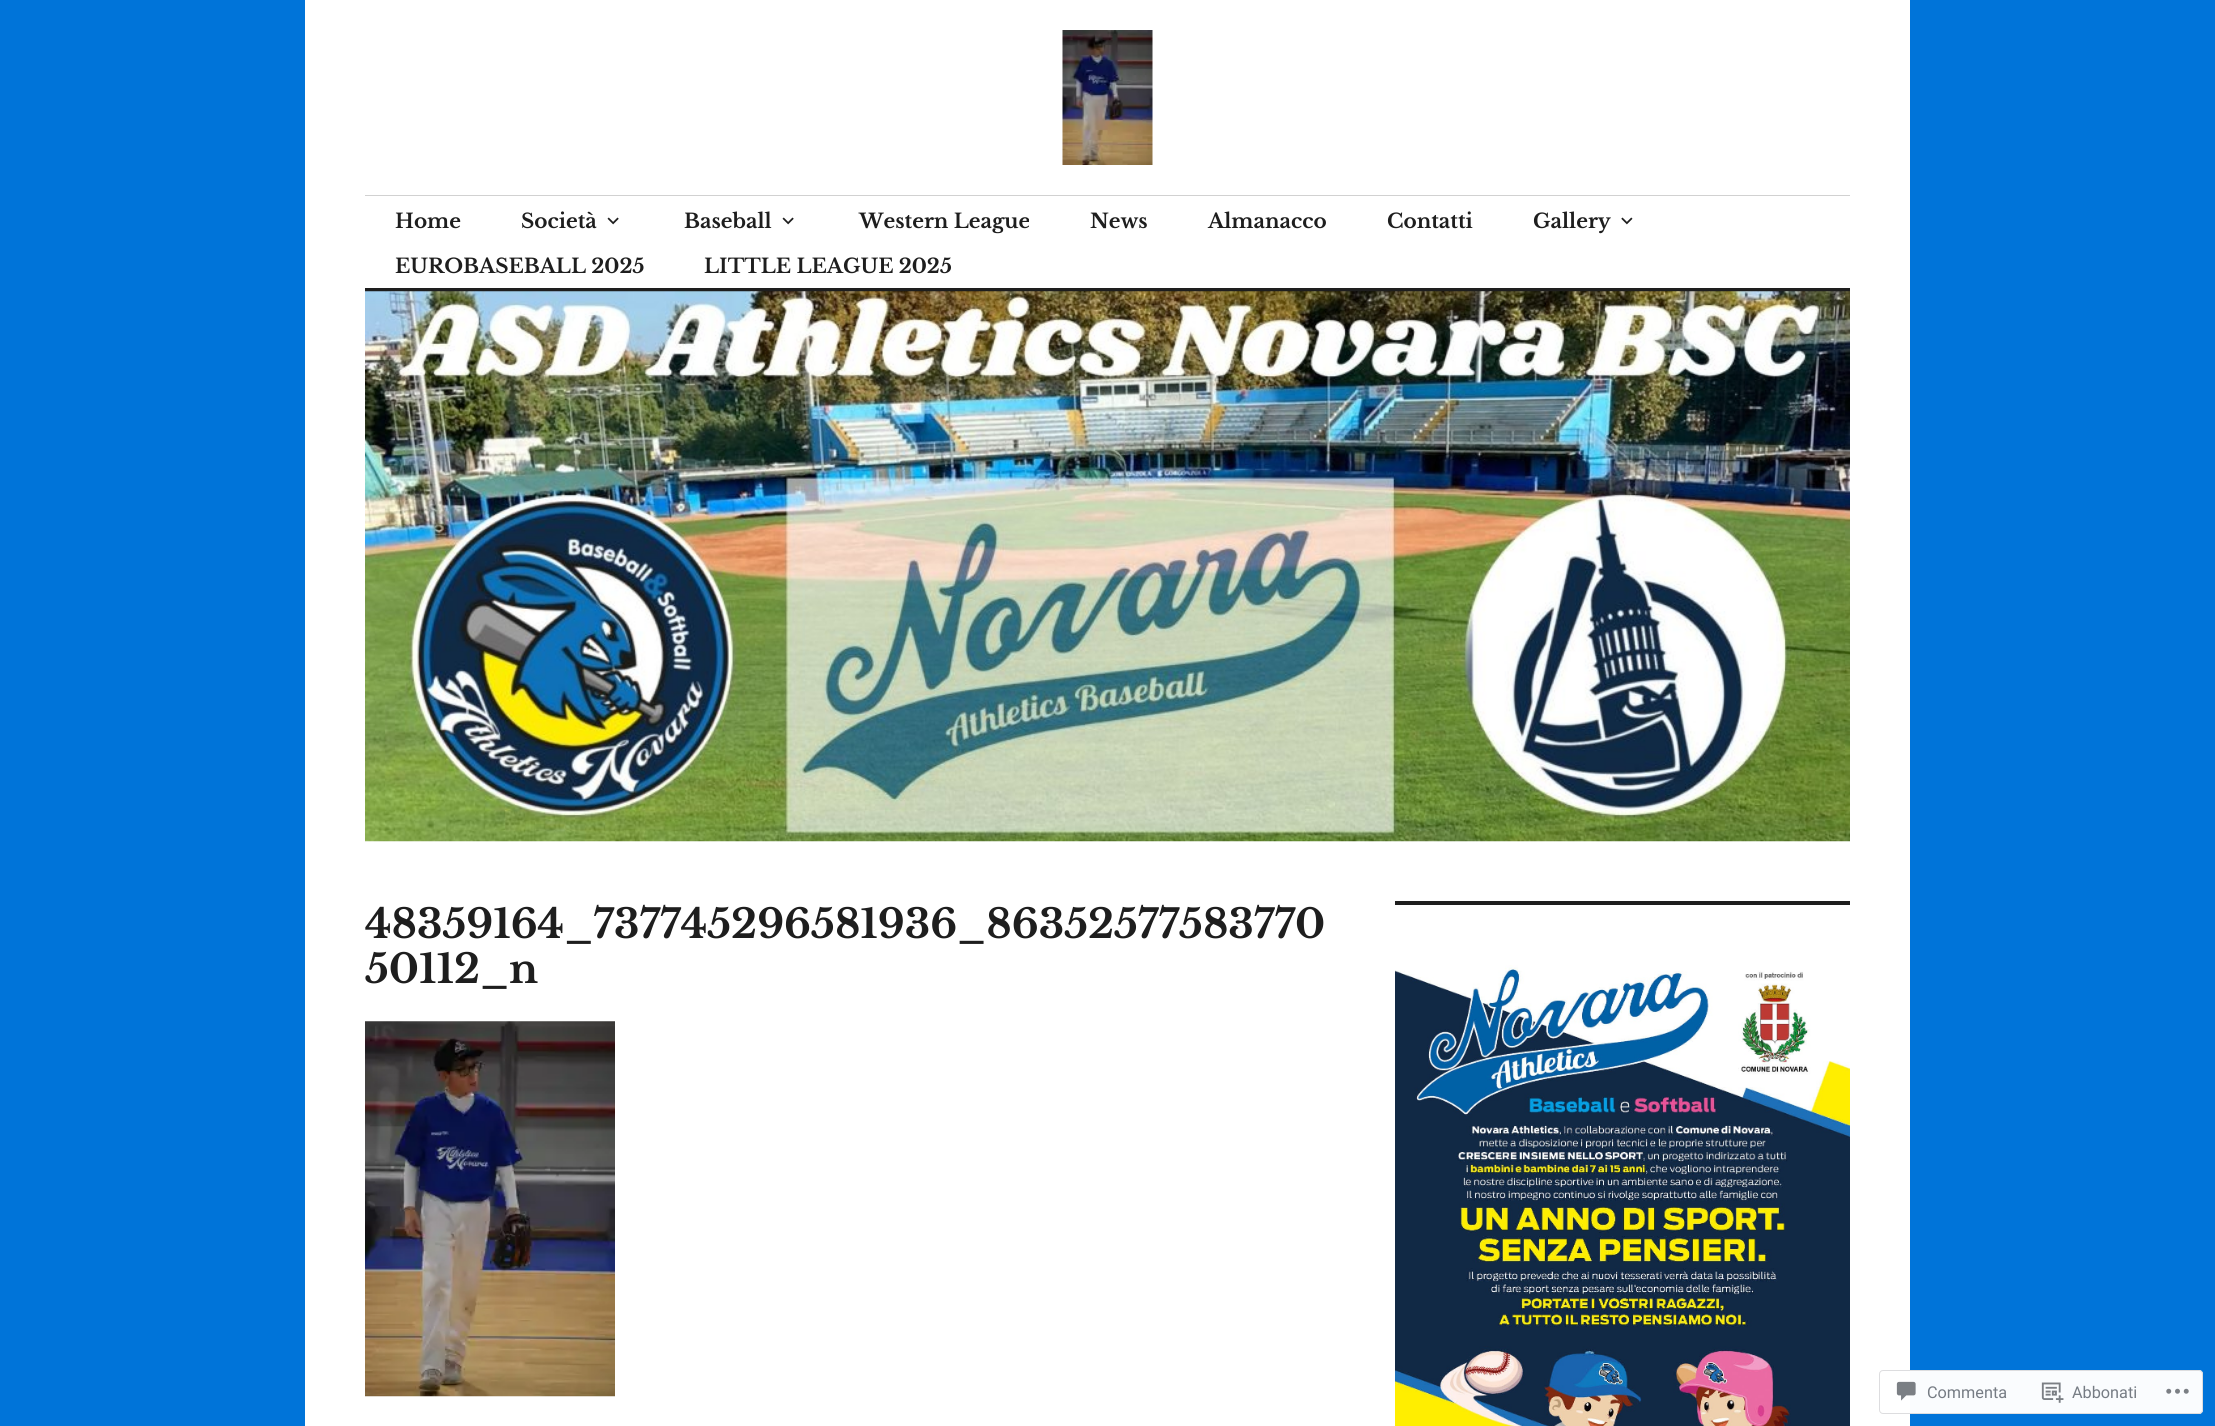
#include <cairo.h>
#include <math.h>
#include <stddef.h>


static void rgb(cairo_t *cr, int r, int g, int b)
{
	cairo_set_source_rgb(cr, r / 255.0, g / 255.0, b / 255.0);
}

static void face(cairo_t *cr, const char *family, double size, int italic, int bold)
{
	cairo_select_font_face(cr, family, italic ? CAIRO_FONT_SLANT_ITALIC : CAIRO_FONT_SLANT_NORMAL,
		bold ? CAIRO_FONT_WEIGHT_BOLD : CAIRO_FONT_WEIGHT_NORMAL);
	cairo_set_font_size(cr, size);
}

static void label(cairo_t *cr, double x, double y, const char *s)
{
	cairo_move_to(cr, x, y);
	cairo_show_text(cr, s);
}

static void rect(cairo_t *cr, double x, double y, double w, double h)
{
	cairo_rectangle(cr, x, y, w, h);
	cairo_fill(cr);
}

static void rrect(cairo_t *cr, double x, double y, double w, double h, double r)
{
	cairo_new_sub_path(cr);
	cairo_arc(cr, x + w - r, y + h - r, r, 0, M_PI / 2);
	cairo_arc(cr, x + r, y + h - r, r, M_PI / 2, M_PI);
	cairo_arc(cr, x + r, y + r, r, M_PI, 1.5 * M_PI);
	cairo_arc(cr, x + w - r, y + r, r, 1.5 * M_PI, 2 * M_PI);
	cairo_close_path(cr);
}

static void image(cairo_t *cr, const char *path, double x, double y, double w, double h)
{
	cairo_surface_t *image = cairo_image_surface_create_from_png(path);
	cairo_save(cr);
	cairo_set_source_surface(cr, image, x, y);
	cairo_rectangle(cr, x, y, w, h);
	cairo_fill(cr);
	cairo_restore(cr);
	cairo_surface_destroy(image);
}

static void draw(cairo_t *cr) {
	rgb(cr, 0, 116, 217);
	cairo_paint(cr);
	rgb(cr, 255, 255, 255);
	rect(cr, 305, 0, 1605, 1426);
	image(cr, "image0.png", 1062, 30, 91, 135);
	rgb(cr, 209, 209, 209);
	rect(cr, 365, 195, 1485, 1);
	rgb(cr, 30, 30, 30);
	rect(cr, 365, 288, 1485, 4);
	face(cr, "Libre Baskerville", 20, 0, 1);
	label(cr, 395, 228, "Home");
	label(cr, 521, 228, "Società");
	image(cr, "image1.png", 607, 217, 12, 8);
	label(cr, 684, 228, "Baseball");
	image(cr, "image1.png", 782, 217, 12, 8);
	label(cr, 859, 228, "Western League");
	label(cr, 1090, 228, "News");
	label(cr, 1208, 228, "Almanacco");
	label(cr, 1387, 228, "Contatti");
	label(cr, 1533, 228, "Gallery");
	image(cr, "image2.png", 1621, 217, 12, 8);
	label(cr, 395, 273, "EUROBASEBALL 2025");
	label(cr, 704, 273, "LITTLE LEAGUE 2025");
	image(cr, "image3.png", 365, 291, 1485, 551);
	face(cr, "Libre Baskerville", 40, 0, 1);
	label(cr, 365, 938, "48359164_737745296581936_86352577583770");
	label(cr, 365, 983, "50112_n");
	image(cr, "image4.png", 365, 1021, 250, 376);
	rect(cr, 1395, 901, 455, 4);
	image(cr, "image5.png", 1395, 965, 455, 461);
	cairo_set_source_rgba(cr, 1, 1, 1, 0.98);
	rrect(cr, 1879, 1370, 324, 44, 4);
	cairo_fill(cr);
	rrect(cr, 1879.5, 1370.5, 323, 43, 3.5);
	cairo_set_source_rgba(cr, 0.863, 0.863, 0.871, 0.98);
	cairo_set_line_width(cr, 1);
	cairo_stroke(cr);
	image(cr, "image6.png", 1896, 1381, 20, 20);
	face(cr, "Roboto", 16.25, 0, 0);
	rgb(cr, 118, 124, 132);
	label(cr, 1927, 1398, "Commenta");
	image(cr, "image7.png", 2041, 1382, 23, 21);
	label(cr, 2072, 1398, "Abbonati");
	image(cr, "image8.png", 2166, 1388, 23, 6);
}

int main(void) {
	cairo_surface_t *surface = cairo_image_surface_create(CAIRO_FORMAT_RGB24, 2215, 1426);
	cairo_t *cr = cairo_create(surface);
	cairo_font_options_t *options = cairo_font_options_create();
	cairo_font_options_set_hint_metrics(options, CAIRO_HINT_METRICS_OFF);
	cairo_font_options_set_hint_style(options, CAIRO_HINT_STYLE_NONE);
	cairo_set_font_options(cr, options);
	cairo_set_miter_limit(cr, 4);
	draw(cr);
	cairo_surface_write_to_png(surface, "render.png");
	cairo_font_options_destroy(options);
	cairo_destroy(cr);
	cairo_surface_destroy(surface);
	return 0;
}
